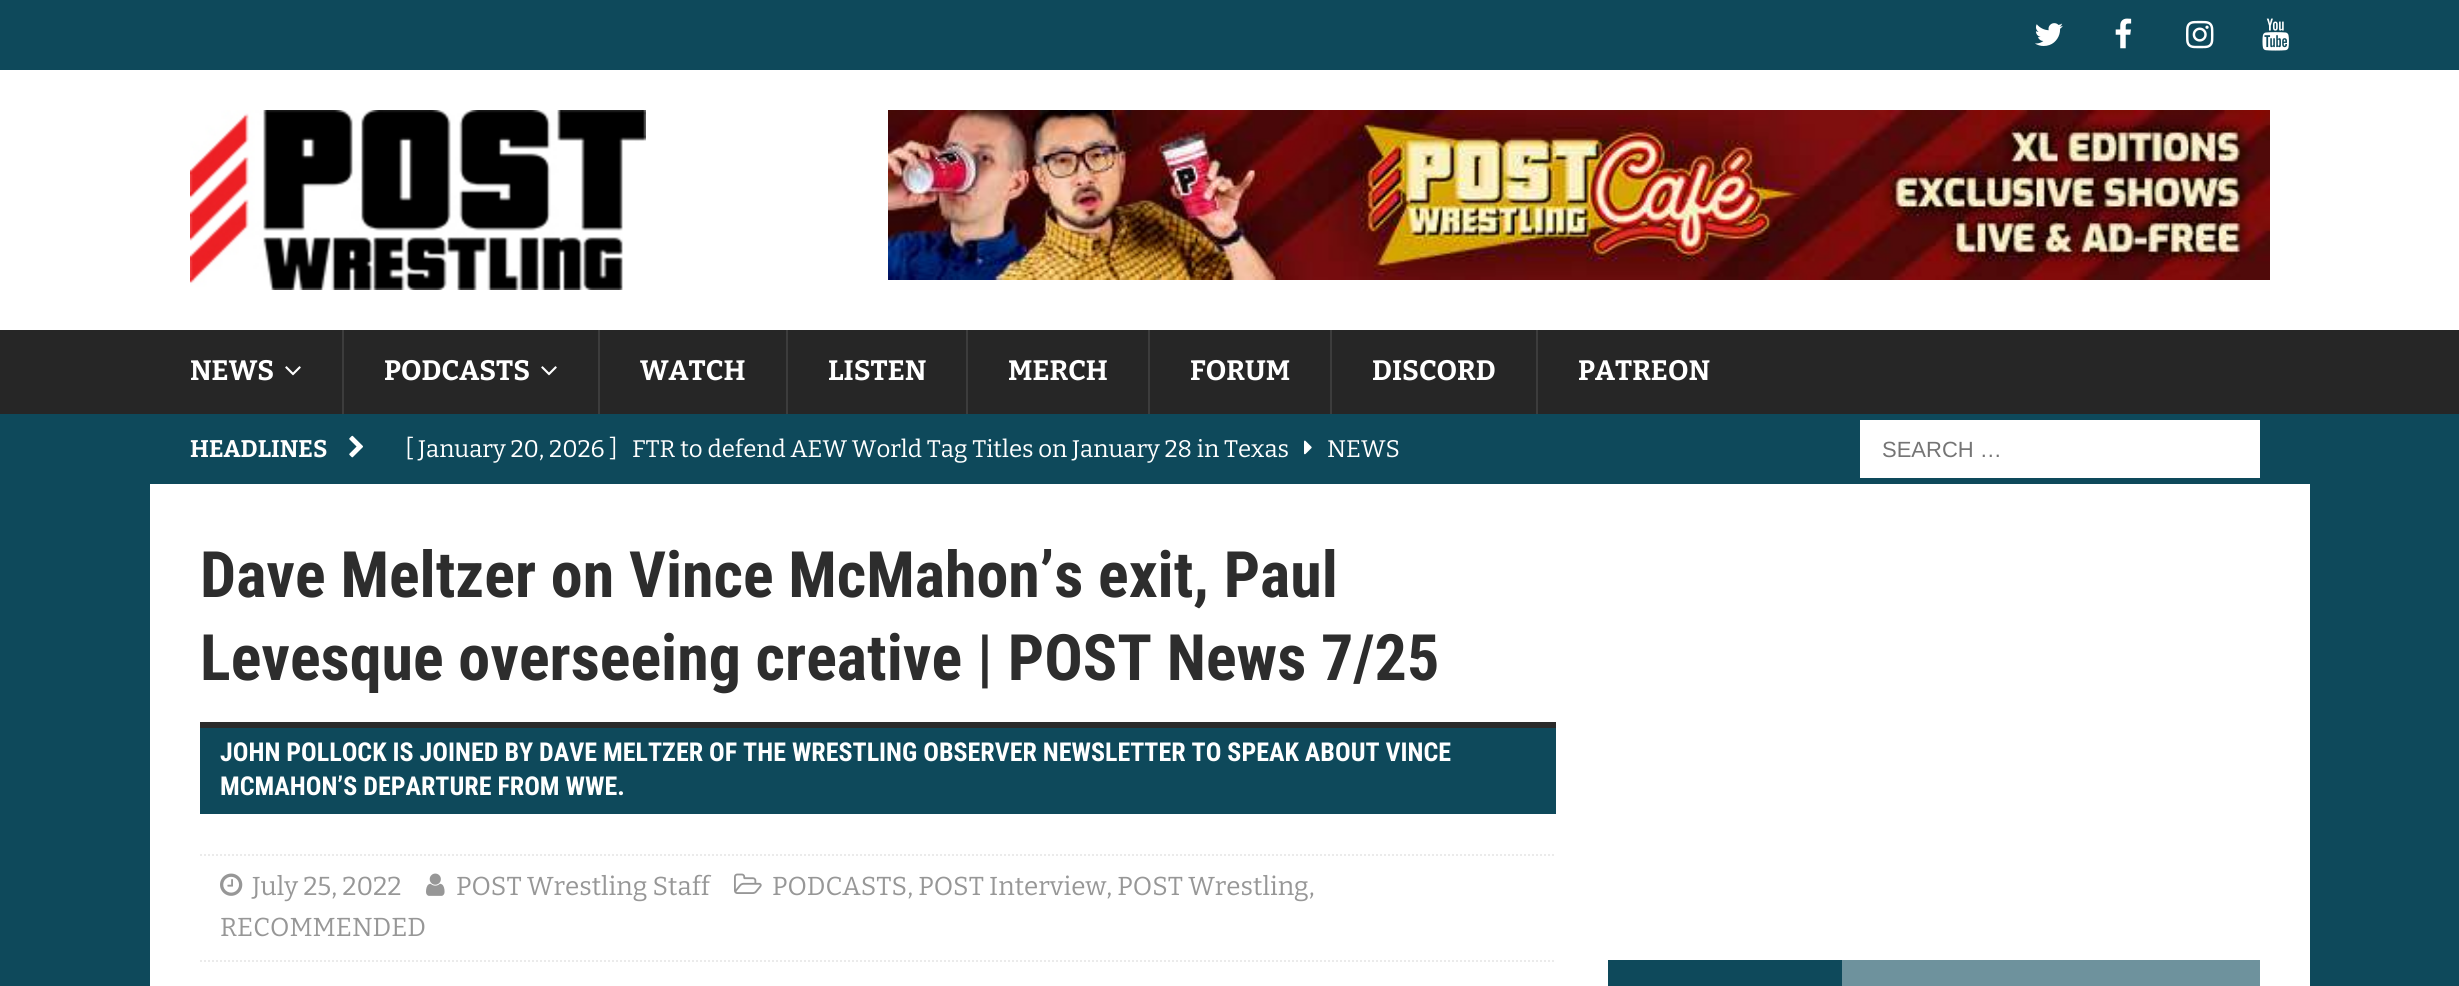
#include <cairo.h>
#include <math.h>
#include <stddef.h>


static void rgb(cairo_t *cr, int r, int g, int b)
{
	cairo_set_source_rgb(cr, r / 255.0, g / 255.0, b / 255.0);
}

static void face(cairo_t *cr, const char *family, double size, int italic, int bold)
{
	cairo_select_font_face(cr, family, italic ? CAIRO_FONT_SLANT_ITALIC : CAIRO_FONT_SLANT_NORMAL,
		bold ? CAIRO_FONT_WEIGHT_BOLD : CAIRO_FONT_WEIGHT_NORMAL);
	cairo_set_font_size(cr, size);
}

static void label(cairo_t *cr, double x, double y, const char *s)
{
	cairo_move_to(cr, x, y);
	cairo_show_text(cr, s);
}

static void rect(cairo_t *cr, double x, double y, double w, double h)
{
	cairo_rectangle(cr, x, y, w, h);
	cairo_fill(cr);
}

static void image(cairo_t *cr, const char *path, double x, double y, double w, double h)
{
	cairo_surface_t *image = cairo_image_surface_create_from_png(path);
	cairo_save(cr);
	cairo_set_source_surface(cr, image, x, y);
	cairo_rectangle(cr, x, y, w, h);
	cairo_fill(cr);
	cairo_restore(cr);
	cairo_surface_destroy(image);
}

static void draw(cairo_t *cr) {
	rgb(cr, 14, 73, 91);
	cairo_paint(cr);
	image(cr, "image0.png", 2035, 23, 28, 23);
	image(cr, "image1.png", 2115, 18, 17, 31);
	image(cr, "image2.png", 2186, 20, 28, 29);
	image(cr, "image3.png", 2262, 18, 27, 33);
	rgb(cr, 255, 255, 255);
	rect(cr, 0, 70, 2459, 260);
	image(cr, "image4.png", 190, 110, 456, 180);
	image(cr, "image5.png", 888, 110, 1382, 170);
	rgb(cr, 38, 38, 38);
	rect(cr, 0, 330, 2459, 84);
	face(cr, "Bitter", 28, 0, 1);
	rgb(cr, 255, 255, 255);
	label(cr, 190, 380, "NEWS");
	image(cr, "image6.png", 285, 366, 16, 10);
	rgb(cr, 60, 60, 60);
	rect(cr, 342, 330, 2, 84);
	rgb(cr, 255, 255, 255);
	label(cr, 384, 380, "PODCASTS");
	image(cr, "image6.png", 541, 366, 16, 10);
	rgb(cr, 60, 60, 60);
	rect(cr, 598, 330, 2, 84);
	rgb(cr, 255, 255, 255);
	label(cr, 640, 380, "WATCH");
	rgb(cr, 60, 60, 60);
	rect(cr, 786, 330, 2, 84);
	rgb(cr, 255, 255, 255);
	label(cr, 828, 380, "LISTEN");
	rgb(cr, 60, 60, 60);
	rect(cr, 966, 330, 2, 84);
	rgb(cr, 255, 255, 255);
	label(cr, 1008, 380, "MERCH");
	rgb(cr, 60, 60, 60);
	rect(cr, 1148, 330, 2, 84);
	rgb(cr, 255, 255, 255);
	label(cr, 1190, 380, "FORUM");
	rgb(cr, 60, 60, 60);
	rect(cr, 1330, 330, 2, 84);
	rgb(cr, 255, 255, 255);
	label(cr, 1372, 380, "DISCORD");
	rgb(cr, 60, 60, 60);
	rect(cr, 1536, 330, 2, 84);
	rgb(cr, 255, 255, 255);
	label(cr, 1578, 380, "PATREON");
	face(cr, "Bitter", 24, 0, 1);
	label(cr, 190, 457, "HEADLINES");
	image(cr, "image7.png", 349, 435, 14, 23);
	face(cr, "Bitter", 24, 0, 0);
	label(cr, 405, 457, "[ January 20, 2026 ]");
	label(cr, 632, 457, "FTR to defend AEW World Tag Titles on January 28 in Texas");
	image(cr, "image8.png", 1304, 440, 8, 15);
	label(cr, 1327, 457, "NEWS");
	rect(cr, 1860, 420, 400, 58);
	face(cr, "Liberation Sans", 22, 0, 0);
	rgb(cr, 117, 117, 117);
	label(cr, 1882, 457, "SEARCH …");
	rgb(cr, 255, 255, 255);
	rect(cr, 150, 484, 2160, 502);
	face(cr, "Roboto Condensed", 64, 0, 1);
	rgb(cr, 45, 45, 45);
	label(cr, 200, 597, "Dave Meltzer on Vince McMahon’s exit, Paul");
	label(cr, 200, 680, "Levesque overseeing creative | POST News 7/25");
	rgb(cr, 42, 42, 42);
	rect(cr, 200, 722, 1356, 6);
	rgb(cr, 14, 73, 91);
	rect(cr, 200, 728, 1356, 86);
	face(cr, "Roboto Condensed", 26, 0, 1);
	rgb(cr, 255, 255, 255);
	label(cr, 220, 761, "JOHN POLLOCK IS JOINED BY DAVE MELTZER OF THE WRESTLING OBSERVER NEWSLETTER TO SPEAK ABOUT VINCE");
	label(cr, 220, 795, "MCMAHON’S DEPARTURE FROM WWE.");
	cairo_new_path(cr);
	cairo_move_to(cr, 200, 855);
	cairo_line_to(cr, 1556, 855);
	rgb(cr, 235, 235, 235);
	cairo_set_dash(cr, (double[]){2, 2}, 2, 0);
	cairo_stroke(cr);
	cairo_new_path(cr);
	cairo_move_to(cr, 200, 961);
	cairo_line_to(cr, 1556, 961);
	cairo_stroke(cr);
	image(cr, "image9.png", 734, 873, 28, 21);
	face(cr, "Bitter", 26, 0, 0);
	rgb(cr, 151, 151, 151);
	label(cr, 772, 895, "PODCASTS, POST Interview, POST Wrestling,");
	label(cr, 220, 936, "RECOMMENDED");
	image(cr, "image10.png", 220, 873, 23, 23);
	label(cr, 252, 895, "July 25, 2022");
	image(cr, "image11.png", 426, 873, 19, 23);
	label(cr, 456, 895, "POST Wrestling Staff");
	rgb(cr, 110, 146, 157);
	rect(cr, 1842, 960, 418, 26);
	rgb(cr, 14, 73, 91);
	rect(cr, 1608, 960, 234, 26);
}

int main(void) {
	cairo_surface_t *surface = cairo_image_surface_create(CAIRO_FORMAT_RGB24, 2459, 986);
	cairo_t *cr = cairo_create(surface);
	cairo_font_options_t *options = cairo_font_options_create();
	cairo_font_options_set_hint_metrics(options, CAIRO_HINT_METRICS_OFF);
	cairo_font_options_set_hint_style(options, CAIRO_HINT_STYLE_NONE);
	cairo_set_font_options(cr, options);
	cairo_set_miter_limit(cr, 4);
	draw(cr);
	cairo_surface_write_to_png(surface, "render.png");
	cairo_font_options_destroy(options);
	cairo_destroy(cr);
	cairo_surface_destroy(surface);
	return 0;
}
